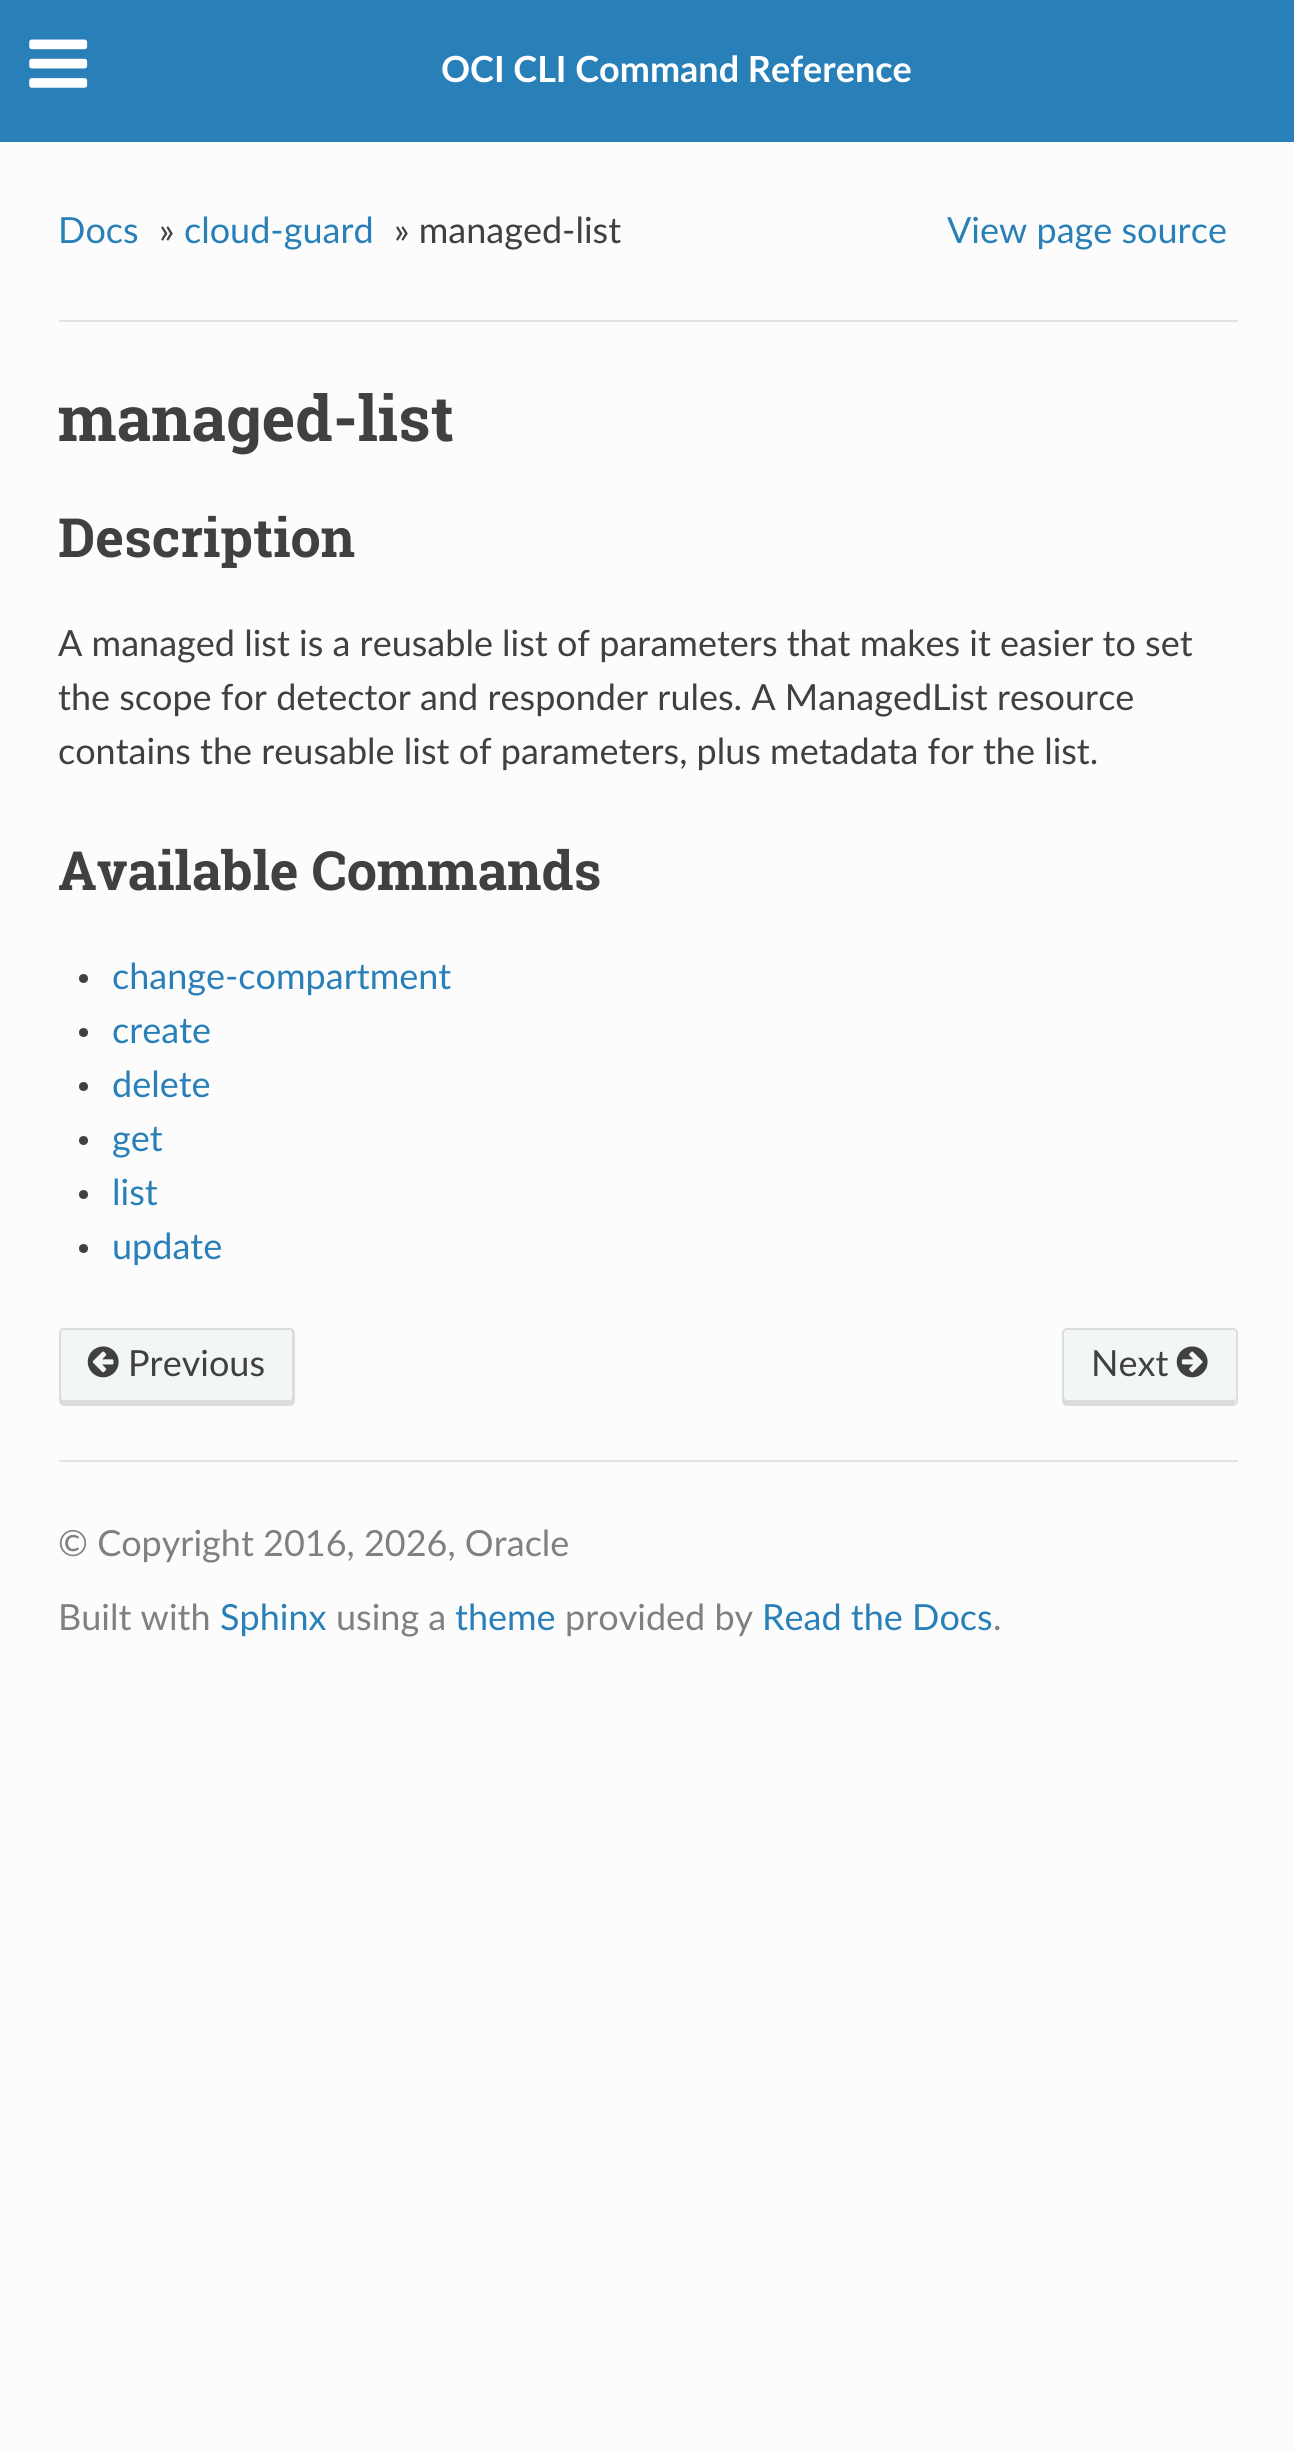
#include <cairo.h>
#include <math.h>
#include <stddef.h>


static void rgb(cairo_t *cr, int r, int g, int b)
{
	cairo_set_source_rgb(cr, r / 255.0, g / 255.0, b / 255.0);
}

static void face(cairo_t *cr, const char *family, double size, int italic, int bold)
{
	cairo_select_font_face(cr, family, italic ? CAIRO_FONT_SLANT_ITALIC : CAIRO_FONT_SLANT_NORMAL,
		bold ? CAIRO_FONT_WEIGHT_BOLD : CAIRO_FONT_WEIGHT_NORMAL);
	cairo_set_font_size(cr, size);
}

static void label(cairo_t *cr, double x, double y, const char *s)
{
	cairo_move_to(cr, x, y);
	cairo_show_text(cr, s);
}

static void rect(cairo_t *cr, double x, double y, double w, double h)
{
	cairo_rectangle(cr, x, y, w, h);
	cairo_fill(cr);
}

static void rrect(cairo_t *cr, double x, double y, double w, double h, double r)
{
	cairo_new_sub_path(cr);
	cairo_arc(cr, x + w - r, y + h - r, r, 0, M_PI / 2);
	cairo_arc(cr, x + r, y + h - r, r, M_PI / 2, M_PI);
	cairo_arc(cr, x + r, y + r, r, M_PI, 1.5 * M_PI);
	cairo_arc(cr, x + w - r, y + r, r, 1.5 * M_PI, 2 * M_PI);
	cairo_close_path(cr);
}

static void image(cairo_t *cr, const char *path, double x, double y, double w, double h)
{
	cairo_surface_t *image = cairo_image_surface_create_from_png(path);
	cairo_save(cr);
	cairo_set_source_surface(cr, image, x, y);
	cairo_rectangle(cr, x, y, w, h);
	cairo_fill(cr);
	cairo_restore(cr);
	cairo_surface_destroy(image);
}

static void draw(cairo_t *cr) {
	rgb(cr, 252, 252, 252);
	cairo_paint(cr);
	rgb(cr, 41, 128, 185);
	rect(cr, 0, 0, 1294, 142);
	image(cr, "image0.png", 29, 39, 59, 49);
	face(cr, "Lato", 36, 0, 1);
	rgb(cr, 255, 255, 255);
	label(cr, 441, 82, "OCI CLI Command Reference");
	face(cr, "Lato", 36, 0, 0);
	rgb(cr, 41, 128, 185);
	label(cr, 58, 243, "Docs");
	rgb(cr, 64, 64, 64);
	label(cr, 159, 243, "»");
	rgb(cr, 41, 128, 185);
	label(cr, 184, 243, "cloud-guard");
	rgb(cr, 64, 64, 64);
	label(cr, 394, 243, "» managed-list");
	rgb(cr, 41, 128, 185);
	label(cr, 947, 243, "View page source");
	rgb(cr, 225, 228, 229);
	rect(cr, 59, 320, 1179, 2);
	face(cr, "Roboto Slab", 63, 0, 1);
	rgb(cr, 64, 64, 64);
	label(cr, 58, 441, "managed-list");
	face(cr, "Roboto Slab", 54, 0, 1);
	label(cr, 58, 557, "Description");
	face(cr, "Lato", 36, 0, 0);
	label(cr, 58, 656, "A managed list is a reusable list of parameters that makes it easier to set");
	label(cr, 58, 710, "the scope for detector and responder rules. A ManagedList resource");
	label(cr, 58, 764, "contains the reusable list of parameters, plus metadata for the list.");
	face(cr, "Roboto Slab", 54, 0, 1);
	label(cr, 58, 890, "Available Commands");
	cairo_new_path(cr);
	cairo_arc(cr, 83.5, 978.5, 4.5, 0, 2 * M_PI);
	cairo_fill(cr);
	face(cr, "Lato", 36, 0, 0);
	rgb(cr, 41, 128, 185);
	label(cr, 112, 989, "change-compartment");
	rgb(cr, 64, 64, 64);
	cairo_new_path(cr);
	cairo_arc(cr, 83.5, 1032.5, 4.5, 0, 2 * M_PI);
	cairo_fill(cr);
	rgb(cr, 41, 128, 185);
	label(cr, 112, 1043, "create");
	rgb(cr, 64, 64, 64);
	cairo_new_path(cr);
	cairo_arc(cr, 83.5, 1086.5, 4.5, 0, 2 * M_PI);
	cairo_fill(cr);
	rgb(cr, 41, 128, 185);
	label(cr, 112, 1097, "delete");
	rgb(cr, 64, 64, 64);
	cairo_new_path(cr);
	cairo_arc(cr, 83.5, 1140.5, 4.5, 0, 2 * M_PI);
	cairo_fill(cr);
	rgb(cr, 41, 128, 185);
	label(cr, 112, 1151, "get");
	rgb(cr, 64, 64, 64);
	cairo_new_path(cr);
	cairo_arc(cr, 83.5, 1194.5, 4.5, 0, 2 * M_PI);
	cairo_fill(cr);
	rgb(cr, 41, 128, 185);
	label(cr, 112, 1205, "list");
	rgb(cr, 64, 64, 64);
	cairo_new_path(cr);
	cairo_arc(cr, 83.5, 1248.5, 4.5, 0, 2 * M_PI);
	cairo_fill(cr);
	rgb(cr, 41, 128, 185);
	label(cr, 112, 1259, "update");
	rgb(cr, 243, 246, 246);
	rrect(cr, 59, 1328, 236, 78, 5);
	cairo_fill(cr);
	rgb(cr, 219, 221, 221);
	cairo_new_path(cr);
	cairo_move_to(cr, 61, 1397);
	cairo_line_to(cr, 61, 1402);
	cairo_curve_to(cr, 61, 1403, 62, 1404, 63, 1404);
	cairo_line_to(cr, 291, 1404);
	cairo_curve_to(cr, 292, 1404, 293, 1403, 293, 1402);
	cairo_line_to(cr, 293, 1332);
	cairo_curve_to(cr, 293, 1331, 293, 1331, 292, 1330);
	cairo_line_to(cr, 292, 1397);
	cairo_curve_to(cr, 292, 1398, 291, 1400, 290, 1400);
	cairo_line_to(cr, 63, 1400);
	cairo_curve_to(cr, 62, 1400, 61, 1398, 61, 1397);
	cairo_close_path(cr);
	cairo_fill(cr);
	rrect(cr, 60, 1329, 234, 76, 4);
	cairo_set_source_rgba(cr, 0, 0, 0, 0.1);
	cairo_stroke(cr);
	image(cr, "image1.png", 87, 1346, 32, 32);
	rgb(cr, 64, 64, 64);
	label(cr, 128, 1376, "Previous");
	rgb(cr, 243, 246, 246);
	rrect(cr, 1062, 1328, 176, 78, 5);
	cairo_fill(cr);
	rgb(cr, 219, 221, 221);
	cairo_new_path(cr);
	cairo_move_to(cr, 1064, 1397);
	cairo_line_to(cr, 1064, 1402);
	cairo_curve_to(cr, 1064, 1403, 1065, 1404, 1066, 1404);
	cairo_line_to(cr, 1233, 1404);
	cairo_curve_to(cr, 1234, 1404, 1235, 1403, 1235, 1402);
	cairo_line_to(cr, 1235, 1397);
	cairo_curve_to(cr, 1235, 1398, 1234, 1400, 1233, 1400);
	cairo_line_to(cr, 1066, 1400);
	cairo_curve_to(cr, 1065, 1400, 1064, 1398, 1064, 1397);
	cairo_close_path(cr);
	cairo_fill(cr);
	rrect(cr, 1063, 1329, 174, 76, 4);
	cairo_set_source_rgba(cr, 0, 0, 0, 0.1);
	cairo_stroke(cr);
	rgb(cr, 64, 64, 64);
	label(cr, 1091, 1376, "Next");
	image(cr, "image2.png", 1176, 1346, 32, 32);
	rgb(cr, 225, 228, 229);
	rect(cr, 59, 1460, 1179, 2);
	rgb(cr, 128, 128, 128);
	label(cr, 58, 1556, "© Copyright 2016, 2026, Oracle");
	label(cr, 58, 1630, "Built with");
	rgb(cr, 41, 128, 185);
	label(cr, 220, 1630, "Sphinx");
	rgb(cr, 128, 128, 128);
	label(cr, 336, 1630, "using a");
	rgb(cr, 41, 128, 185);
	label(cr, 455, 1630, "theme");
	rgb(cr, 128, 128, 128);
	label(cr, 565, 1630, "provided by");
	rgb(cr, 41, 128, 185);
	label(cr, 762, 1630, "Read the Docs");
	rgb(cr, 128, 128, 128);
	label(cr, 993, 1630, ".");
}

int main(void) {
	cairo_surface_t *surface = cairo_image_surface_create(CAIRO_FORMAT_RGB24, 1294, 2452);
	cairo_t *cr = cairo_create(surface);
	cairo_font_options_t *options = cairo_font_options_create();
	cairo_font_options_set_hint_metrics(options, CAIRO_HINT_METRICS_OFF);
	cairo_font_options_set_hint_style(options, CAIRO_HINT_STYLE_NONE);
	cairo_set_font_options(cr, options);
	cairo_set_miter_limit(cr, 4);
	draw(cr);
	cairo_surface_write_to_png(surface, "render.png");
	cairo_font_options_destroy(options);
	cairo_destroy(cr);
	cairo_surface_destroy(surface);
	return 0;
}
